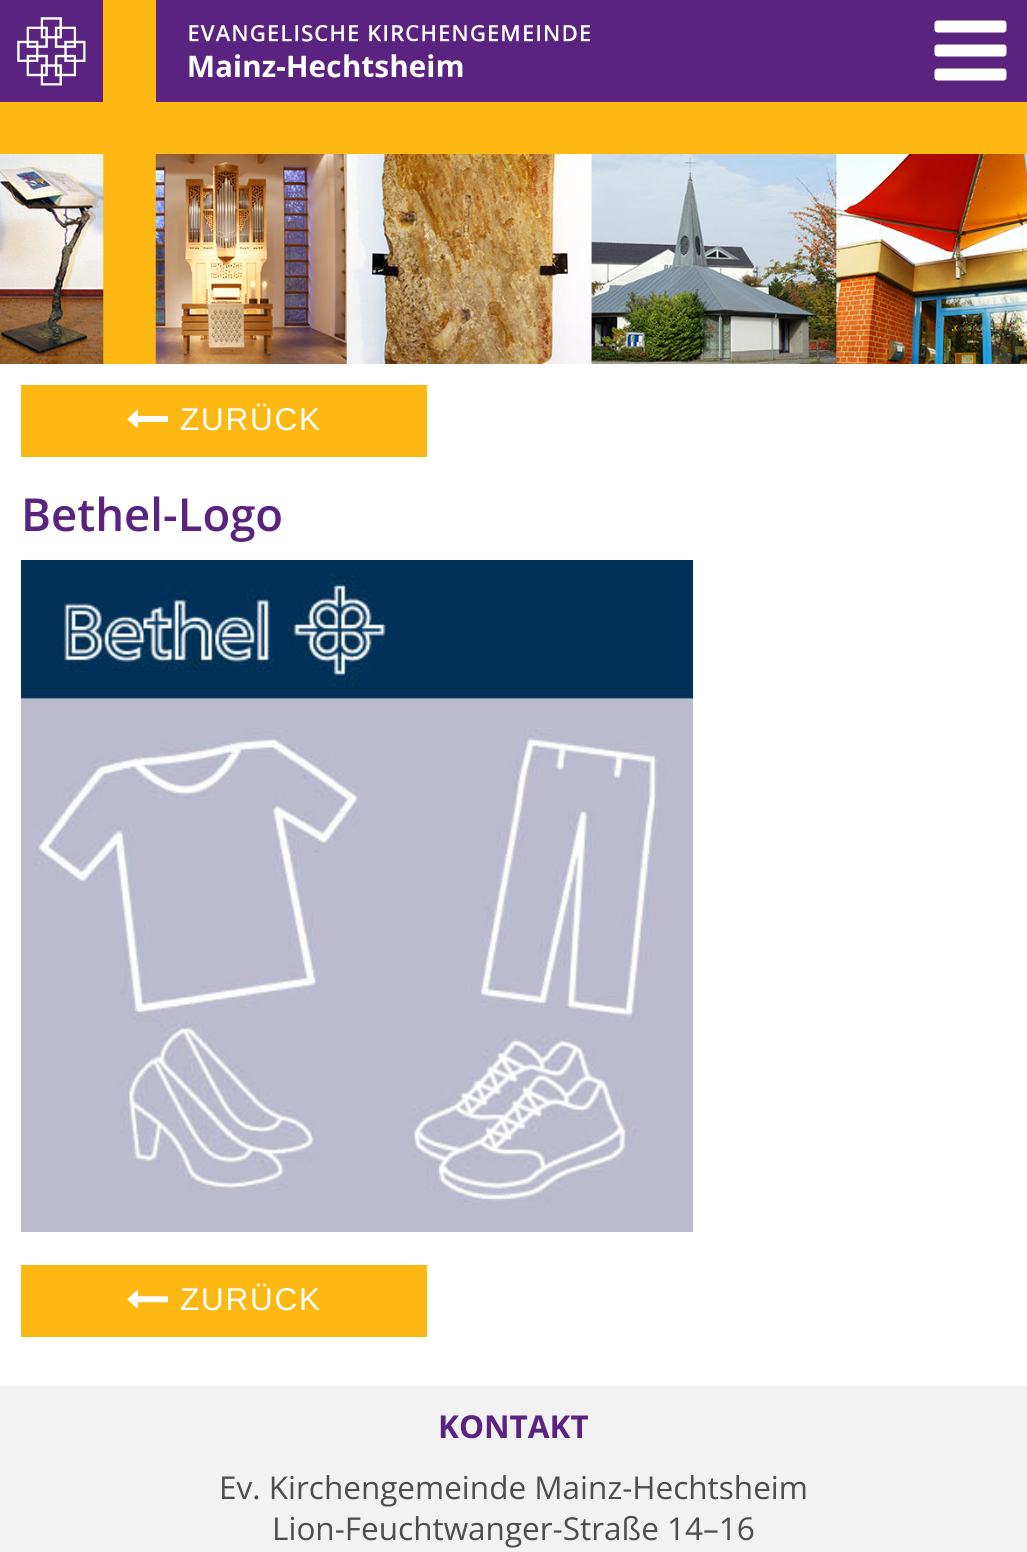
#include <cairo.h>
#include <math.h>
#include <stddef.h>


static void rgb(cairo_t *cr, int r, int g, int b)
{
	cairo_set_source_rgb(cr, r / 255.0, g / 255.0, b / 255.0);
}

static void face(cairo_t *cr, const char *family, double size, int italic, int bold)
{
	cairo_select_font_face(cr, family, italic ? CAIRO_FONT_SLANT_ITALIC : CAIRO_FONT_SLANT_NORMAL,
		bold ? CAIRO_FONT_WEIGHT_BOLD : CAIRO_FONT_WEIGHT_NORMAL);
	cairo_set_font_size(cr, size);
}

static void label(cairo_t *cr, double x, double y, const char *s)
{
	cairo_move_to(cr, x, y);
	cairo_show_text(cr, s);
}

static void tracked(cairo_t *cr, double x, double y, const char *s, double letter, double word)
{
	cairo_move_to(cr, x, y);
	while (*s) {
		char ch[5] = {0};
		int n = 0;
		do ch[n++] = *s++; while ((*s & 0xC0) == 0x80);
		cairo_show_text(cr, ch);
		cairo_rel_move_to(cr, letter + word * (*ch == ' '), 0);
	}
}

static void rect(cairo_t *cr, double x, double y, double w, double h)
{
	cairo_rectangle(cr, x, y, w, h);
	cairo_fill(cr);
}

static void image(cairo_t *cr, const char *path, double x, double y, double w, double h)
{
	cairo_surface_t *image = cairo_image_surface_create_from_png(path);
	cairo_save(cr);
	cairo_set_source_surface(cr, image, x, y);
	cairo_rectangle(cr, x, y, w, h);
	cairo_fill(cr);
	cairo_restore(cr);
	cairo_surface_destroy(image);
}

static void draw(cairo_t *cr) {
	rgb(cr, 255, 255, 255);
	cairo_paint(cr);
	rgb(cr, 253, 184, 19);
	rect(cr, 103, 154, 53, 210);
	rgb(cr, 91, 35, 128);
	rect(cr, 0, 0, 1027, 102);
	rgb(cr, 253, 184, 19);
	rect(cr, 103, 0, 53, 102);
	image(cr, "image0.png", 17, 17, 69, 69);
	image(cr, "image1.png", 189, 25, 401, 53);
	image(cr, "image2.png", 934, 20, 73, 61);
	rect(cr, 0, 102, 1027, 52);
	image(cr, "image3.png", 0, 154, 104, 210);
	image(cr, "image4.png", 155, 154, 872, 210);
	rect(cr, 21, 385, 406, 72);
	image(cr, "image5.png", 127, 410, 41, 18);
	face(cr, "Liberation Sans", 31.5, 0, 0);
	rgb(cr, 255, 255, 255);
	tracked(cr, 180, 430, "ZURÜCK", 1.75, 0);
	face(cr, "Open Sans SemiBold", 45.5, 0, 0);
	rgb(cr, 91, 35, 128);
	label(cr, 21, 531, "Bethel-Logo");
	image(cr, "image6.png", 21, 560, 672, 672);
	rgb(cr, 253, 184, 19);
	rect(cr, 21, 1265, 406, 72);
	image(cr, "image7.png", 127, 1290, 41, 19);
	face(cr, "Liberation Sans", 31.5, 0, 0);
	rgb(cr, 255, 255, 255);
	tracked(cr, 180, 1310, "ZURÜCK", 1.75, 0);
	rgb(cr, 242, 242, 242);
	rect(cr, 0, 1386, 1027, 166);
	face(cr, "Open Sans", 31.5, 0, 1);
	rgb(cr, 91, 35, 128);
	label(cr, 438, 1438, "KONTAKT");
	face(cr, "Open Sans", 31.5, 0, 0);
	rgb(cr, 77, 77, 77);
	label(cr, 219, 1499, "Ev. Kirchengemeinde Mainz-Hechtsheim");
	label(cr, 272, 1540, "Lion-Feuchtwanger-Straße 14–16");
}

int main(void) {
	cairo_surface_t *surface = cairo_image_surface_create(CAIRO_FORMAT_RGB24, 1027, 1552);
	cairo_t *cr = cairo_create(surface);
	cairo_font_options_t *options = cairo_font_options_create();
	cairo_font_options_set_hint_metrics(options, CAIRO_HINT_METRICS_OFF);
	cairo_font_options_set_hint_style(options, CAIRO_HINT_STYLE_NONE);
	cairo_set_font_options(cr, options);
	cairo_set_miter_limit(cr, 4);
	draw(cr);
	cairo_surface_write_to_png(surface, "render.png");
	cairo_font_options_destroy(options);
	cairo_destroy(cr);
	cairo_surface_destroy(surface);
	return 0;
}
